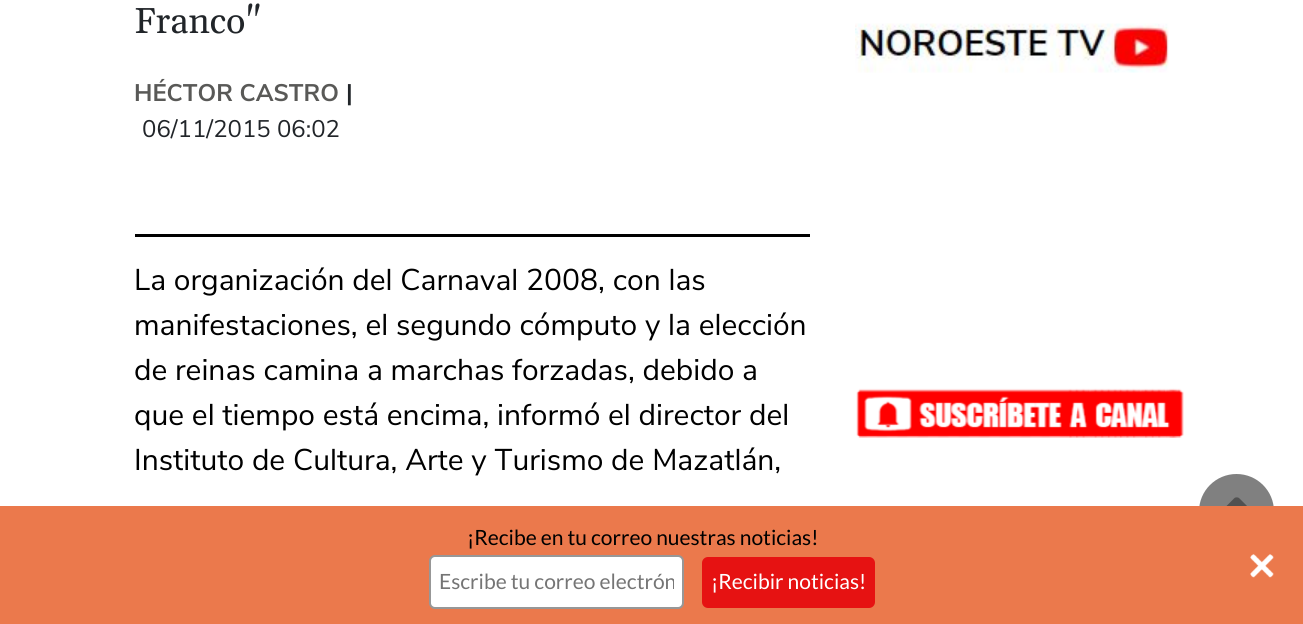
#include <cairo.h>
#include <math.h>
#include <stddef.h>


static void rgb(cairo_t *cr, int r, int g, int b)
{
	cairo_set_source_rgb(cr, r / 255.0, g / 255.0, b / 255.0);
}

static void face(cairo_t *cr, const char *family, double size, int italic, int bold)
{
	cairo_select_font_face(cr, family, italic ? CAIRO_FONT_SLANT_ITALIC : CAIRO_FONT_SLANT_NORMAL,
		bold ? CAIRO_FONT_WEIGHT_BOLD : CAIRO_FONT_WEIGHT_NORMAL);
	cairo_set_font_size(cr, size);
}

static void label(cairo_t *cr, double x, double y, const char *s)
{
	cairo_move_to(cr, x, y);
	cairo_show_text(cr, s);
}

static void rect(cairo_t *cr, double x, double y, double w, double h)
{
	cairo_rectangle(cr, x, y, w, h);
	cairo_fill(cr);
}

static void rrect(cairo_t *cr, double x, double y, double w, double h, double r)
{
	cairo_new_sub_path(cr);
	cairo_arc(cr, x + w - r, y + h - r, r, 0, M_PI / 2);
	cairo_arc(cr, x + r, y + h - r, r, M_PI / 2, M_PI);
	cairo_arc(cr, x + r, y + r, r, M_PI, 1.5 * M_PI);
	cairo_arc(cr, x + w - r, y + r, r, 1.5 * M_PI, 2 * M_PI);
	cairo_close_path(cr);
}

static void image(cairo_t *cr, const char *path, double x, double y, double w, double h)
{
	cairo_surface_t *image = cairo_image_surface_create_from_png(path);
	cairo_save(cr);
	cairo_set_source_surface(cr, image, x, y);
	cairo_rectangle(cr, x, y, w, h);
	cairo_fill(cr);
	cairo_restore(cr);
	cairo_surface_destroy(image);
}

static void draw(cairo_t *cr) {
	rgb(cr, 255, 255, 255);
	cairo_paint(cr);
	face(cr, "Gelasio", 36, 0, 0);
	rgb(cr, 33, 37, 41);
	label(cr, 134, 33, "Franco\"");
	face(cr, "Nunito Sans", 24, 0, 1);
	rgb(cr, 89, 89, 87);
	label(cr, 134, 101, "HÉCTOR CASTRO");
	rgb(cr, 33, 37, 41);
	label(cr, 346, 101, "|");
	face(cr, "Nunito Sans", 24, 0, 0);
	label(cr, 142, 137, "06/11/2015 06:02");
	rgb(cr, 0, 0, 0);
	rect(cr, 135, 234, 675, 3);
	face(cr, "Nunito Sans", 30, 0, 0);
	label(cr, 134, 290, "La organización del Carnaval 2008, con las");
	label(cr, 134, 335, "manifestaciones, el segundo cómputo y la elección");
	label(cr, 134, 380, "de reinas camina a marchas forzadas, debido a");
	label(cr, 134, 425, "que el tiempo está encima, informó el director del");
	label(cr, 134, 470, "Instituto de Cultura, Arte y Turismo de Mazatlán,");
	image(cr, "image0.png", 855, 23, 314, 50);
	image(cr, "image1.png", 856, 388, 328, 50);
	rgb(cr, 128, 128, 128);
	cairo_arc(cr, 1236.5, 511.5, 37.5, 0, 2 * M_PI);
	cairo_fill(cr);
	image(cr, "image2.png", 1226, 497, 21, 9);
	rgb(cr, 235, 121, 76);
	rect(cr, 0, 506, 1303, 118);
	face(cr, "Lato", 21, 0, 0);
	rgb(cr, 0, 0, 0);
	label(cr, 467, 545, "¡Recibe en tu correo nuestras noticias!");
	rgb(cr, 255, 255, 255);
	rrect(cr, 430, 556, 253, 52, 5);
	cairo_fill_preserve(cr);
	rgb(cr, 151, 151, 151);
	cairo_stroke(cr);
	cairo_save(cr);
	cairo_rectangle(cr, 440, 569, 234, 25);
	cairo_clip(cr);
	rgb(cr, 117, 117, 117);
	label(cr, 439, 589, "Escribe tu correo electrón");
	cairo_restore(cr);
	rgb(cr, 230, 18, 18);
	rrect(cr, 702, 557, 173, 51, 6);
	cairo_fill(cr);
	rgb(cr, 255, 255, 255);
	label(cr, 711, 589, "¡Recibir noticias!");
	image(cr, "image3.png", 1250, 554, 24, 24);
}

int main(void) {
	cairo_surface_t *surface = cairo_image_surface_create(CAIRO_FORMAT_RGB24, 1303, 624);
	cairo_t *cr = cairo_create(surface);
	cairo_font_options_t *options = cairo_font_options_create();
	cairo_font_options_set_hint_metrics(options, CAIRO_HINT_METRICS_OFF);
	cairo_font_options_set_hint_style(options, CAIRO_HINT_STYLE_NONE);
	cairo_set_font_options(cr, options);
	cairo_set_miter_limit(cr, 4);
	draw(cr);
	cairo_surface_write_to_png(surface, "render.png");
	cairo_font_options_destroy(options);
	cairo_destroy(cr);
	cairo_surface_destroy(surface);
	return 0;
}
